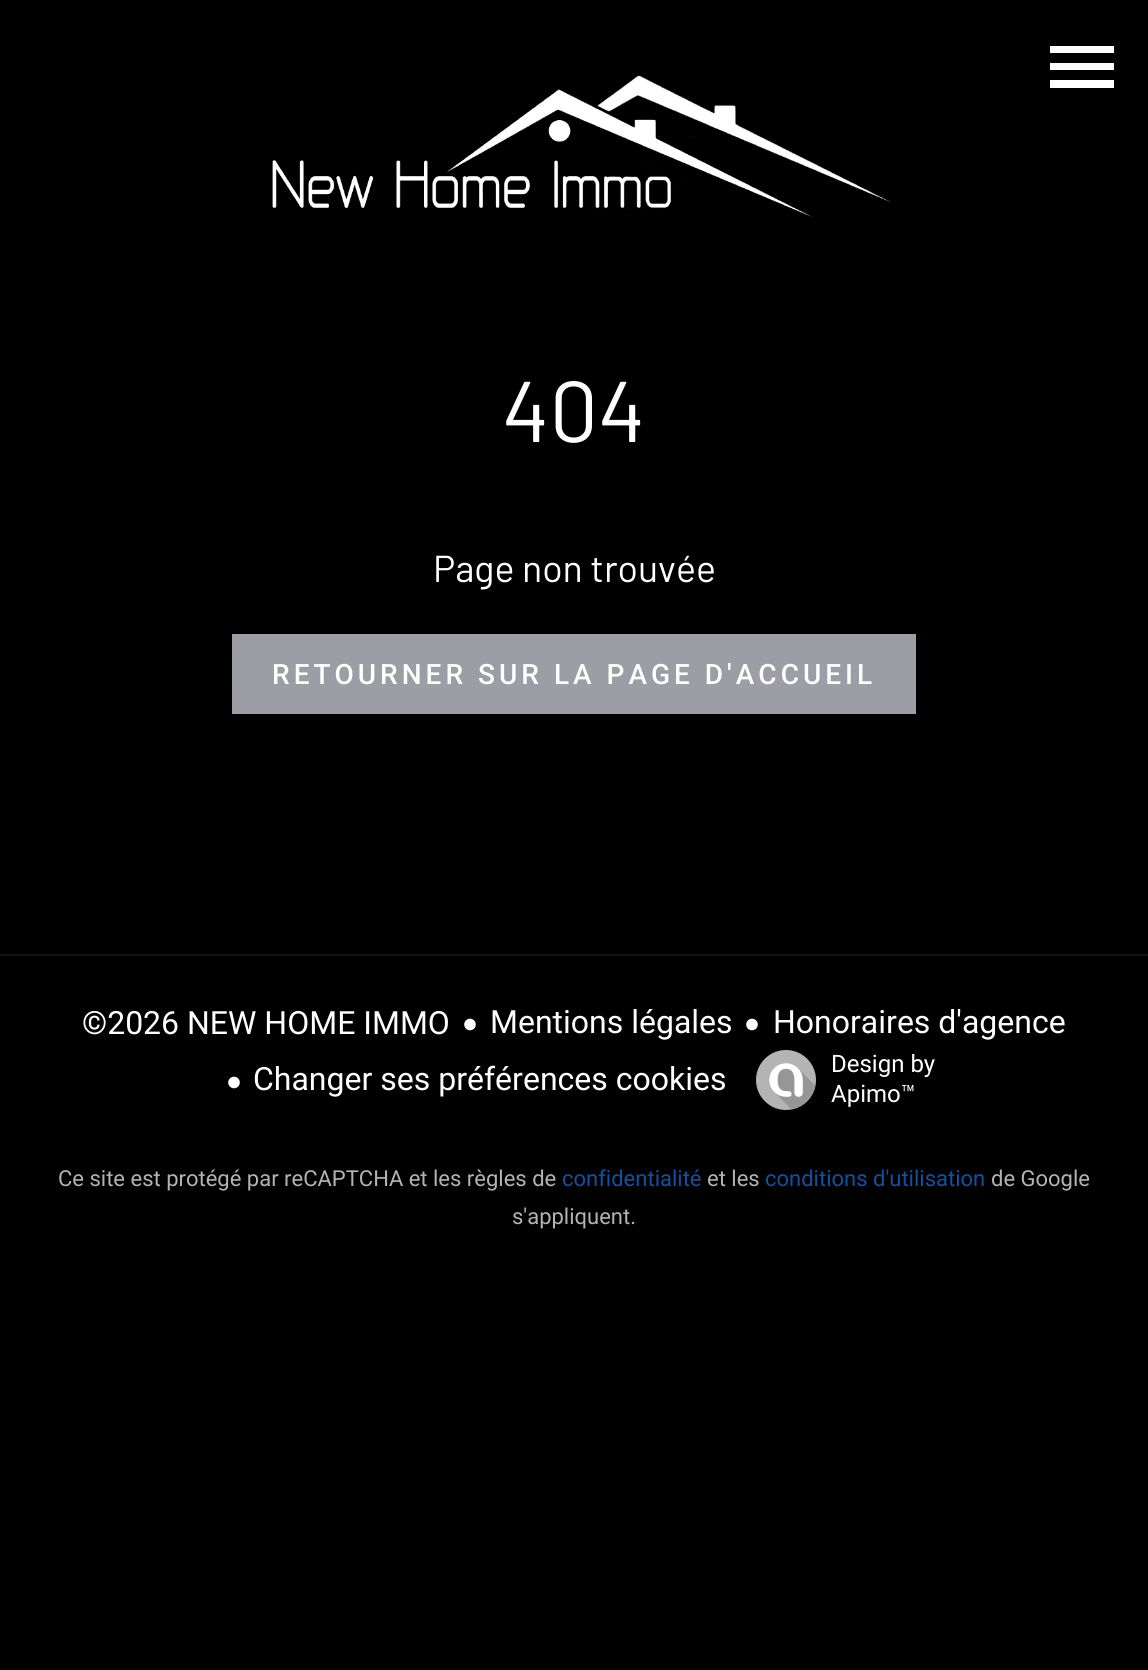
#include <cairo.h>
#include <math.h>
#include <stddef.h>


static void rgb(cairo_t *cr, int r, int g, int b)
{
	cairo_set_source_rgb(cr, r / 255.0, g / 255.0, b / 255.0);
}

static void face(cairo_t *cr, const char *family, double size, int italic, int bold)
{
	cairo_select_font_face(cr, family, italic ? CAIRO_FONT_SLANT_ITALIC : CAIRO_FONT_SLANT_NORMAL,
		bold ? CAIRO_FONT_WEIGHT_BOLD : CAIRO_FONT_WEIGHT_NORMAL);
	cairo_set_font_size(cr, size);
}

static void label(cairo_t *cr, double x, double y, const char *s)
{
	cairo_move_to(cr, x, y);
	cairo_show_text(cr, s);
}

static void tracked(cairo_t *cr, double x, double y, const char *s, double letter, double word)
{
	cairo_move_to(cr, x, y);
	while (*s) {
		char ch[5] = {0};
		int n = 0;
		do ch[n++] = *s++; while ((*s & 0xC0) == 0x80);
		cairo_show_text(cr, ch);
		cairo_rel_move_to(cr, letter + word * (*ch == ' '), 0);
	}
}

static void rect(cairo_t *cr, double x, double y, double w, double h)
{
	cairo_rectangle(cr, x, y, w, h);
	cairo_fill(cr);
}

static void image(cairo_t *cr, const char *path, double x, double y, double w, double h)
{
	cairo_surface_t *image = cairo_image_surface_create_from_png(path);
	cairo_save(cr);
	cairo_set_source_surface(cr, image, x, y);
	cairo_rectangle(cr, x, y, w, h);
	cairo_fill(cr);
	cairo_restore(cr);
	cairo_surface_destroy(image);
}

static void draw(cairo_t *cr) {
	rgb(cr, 0, 0, 0);
	cairo_paint(cr);
	rgb(cr, 255, 255, 255);
	cairo_new_path(cr);
	cairo_move_to(cr, 1050, 46);
	cairo_line_to(cr, 1114, 46);
	cairo_line_to(cr, 1114, 53);
	cairo_line_to(cr, 1050, 53);
	cairo_close_path(cr);
	cairo_move_to(cr, 1050, 63);
	cairo_line_to(cr, 1114, 63);
	cairo_line_to(cr, 1114, 70);
	cairo_line_to(cr, 1050, 70);
	cairo_close_path(cr);
	cairo_move_to(cr, 1050, 80);
	cairo_line_to(cr, 1114, 80);
	cairo_line_to(cr, 1114, 88);
	cairo_line_to(cr, 1050, 88);
	cairo_close_path(cr);
	cairo_fill(cr);
	image(cr, "image0.png", 272, 75, 619, 142);
	face(cr, "Barlow", 86, 0, 0);
	label(cr, 502, 442, "404");
	face(cr, "Barlow", 37.5, 0, 0);
	label(cr, 433, 582, "Page non trouvée");
	rgb(cr, 157, 157, 166);
	rect(cr, 232, 634, 684, 80);
	face(cr, "Roboto Medium", 28, 0, 0);
	rgb(cr, 255, 255, 255);
	tracked(cr, 272, 684, "RETOURNER SUR LA PAGE D'ACCUEIL", 4, 0);
	rgb(cr, 20, 20, 20);
	rect(cr, 0, 954, 1148, 2);
	face(cr, "Roboto", 32, 0, 0);
	rgb(cr, 255, 255, 255);
	label(cr, 82, 1034, "©2026 NEW HOME IMMO");
	image(cr, "image1.png", 464, 1018, 12, 13);
	label(cr, 490, 1033, "Mentions légales");
	image(cr, "image1.png", 746, 1018, 12, 13);
	label(cr, 773, 1033, "Honoraires d'agence");
	image(cr, "image1.png", 228, 1076, 12, 13);
	label(cr, 253, 1090, "Changer ses préférences cookies");
	image(cr, "image2.png", 756, 1050, 60, 60);
	face(cr, "Roboto", 24, 0, 0);
	label(cr, 831, 1072, "Design by");
	label(cr, 831, 1102, "Apimo™");
	face(cr, "Roboto", 22, 0, 0);
	rgb(cr, 179, 179, 179);
	label(cr, 58, 1186, "Ce site est protégé par reCAPTCHA et les règles de");
	rgb(cr, 18, 81, 162);
	label(cr, 562, 1186, "confidentialité");
	rgb(cr, 179, 179, 179);
	label(cr, 707, 1186, "et les");
	rgb(cr, 18, 81, 162);
	label(cr, 765, 1186, "conditions d'utilisation");
	rgb(cr, 179, 179, 179);
	label(cr, 991, 1186, "de Google");
	label(cr, 512, 1224, "s'appliquent.");
}

int main(void) {
	cairo_surface_t *surface = cairo_image_surface_create(CAIRO_FORMAT_RGB24, 1148, 1670);
	cairo_t *cr = cairo_create(surface);
	cairo_font_options_t *options = cairo_font_options_create();
	cairo_font_options_set_hint_metrics(options, CAIRO_HINT_METRICS_OFF);
	cairo_font_options_set_hint_style(options, CAIRO_HINT_STYLE_NONE);
	cairo_set_font_options(cr, options);
	cairo_set_miter_limit(cr, 4);
	draw(cr);
	cairo_surface_write_to_png(surface, "render.png");
	cairo_font_options_destroy(options);
	cairo_destroy(cr);
	cairo_surface_destroy(surface);
	return 0;
}
